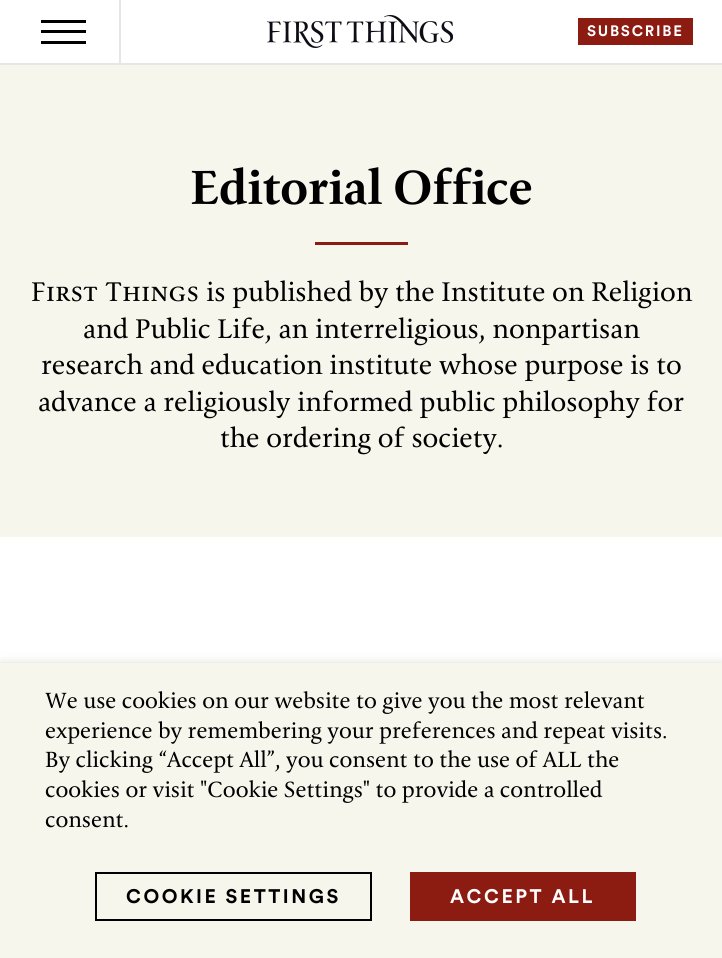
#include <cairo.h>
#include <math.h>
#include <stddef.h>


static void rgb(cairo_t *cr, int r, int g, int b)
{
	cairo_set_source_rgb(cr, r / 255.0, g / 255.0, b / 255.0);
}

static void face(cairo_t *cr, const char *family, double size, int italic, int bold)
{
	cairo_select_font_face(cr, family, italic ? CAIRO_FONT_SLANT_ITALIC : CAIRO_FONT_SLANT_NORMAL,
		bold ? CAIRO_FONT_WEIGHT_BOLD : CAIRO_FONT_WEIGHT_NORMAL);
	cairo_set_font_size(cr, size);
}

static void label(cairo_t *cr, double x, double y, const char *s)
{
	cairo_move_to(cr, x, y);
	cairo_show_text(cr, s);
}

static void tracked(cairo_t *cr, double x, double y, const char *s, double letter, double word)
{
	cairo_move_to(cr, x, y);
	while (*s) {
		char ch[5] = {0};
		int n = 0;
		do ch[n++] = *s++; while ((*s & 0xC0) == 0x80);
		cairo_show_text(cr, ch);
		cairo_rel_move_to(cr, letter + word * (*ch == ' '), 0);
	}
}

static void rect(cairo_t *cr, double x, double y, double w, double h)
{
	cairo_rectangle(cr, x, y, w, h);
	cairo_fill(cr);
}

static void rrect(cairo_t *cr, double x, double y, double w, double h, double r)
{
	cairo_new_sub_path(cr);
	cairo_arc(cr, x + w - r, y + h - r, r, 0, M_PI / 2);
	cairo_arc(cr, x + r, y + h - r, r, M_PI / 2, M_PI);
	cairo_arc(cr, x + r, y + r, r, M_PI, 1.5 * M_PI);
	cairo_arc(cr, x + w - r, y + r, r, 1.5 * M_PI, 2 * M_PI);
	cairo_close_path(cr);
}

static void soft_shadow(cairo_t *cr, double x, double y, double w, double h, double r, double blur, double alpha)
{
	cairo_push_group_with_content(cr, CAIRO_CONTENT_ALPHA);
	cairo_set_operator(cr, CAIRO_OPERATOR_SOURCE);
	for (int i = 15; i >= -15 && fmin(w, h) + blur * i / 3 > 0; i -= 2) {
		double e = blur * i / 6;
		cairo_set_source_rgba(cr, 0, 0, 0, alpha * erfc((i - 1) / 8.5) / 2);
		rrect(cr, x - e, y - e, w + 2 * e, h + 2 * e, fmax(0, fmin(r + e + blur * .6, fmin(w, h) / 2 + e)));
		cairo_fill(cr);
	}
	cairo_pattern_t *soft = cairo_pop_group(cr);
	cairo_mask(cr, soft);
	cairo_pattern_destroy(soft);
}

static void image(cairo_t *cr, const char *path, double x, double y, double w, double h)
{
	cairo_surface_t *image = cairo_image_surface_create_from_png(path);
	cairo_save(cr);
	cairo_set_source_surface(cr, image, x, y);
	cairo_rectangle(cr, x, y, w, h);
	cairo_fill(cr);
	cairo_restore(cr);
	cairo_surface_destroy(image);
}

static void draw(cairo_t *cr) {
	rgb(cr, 255, 255, 255);
	cairo_paint(cr);
	rgb(cr, 230, 230, 230);
	rect(cr, 0, 63, 722, 2);
	rect(cr, 119, 0, 2, 63);
	rgb(cr, 0, 0, 0);
	rect(cr, 41, 30, 45, 3);
	rect(cr, 41, 20, 45, 3);
	rect(cr, 41, 41, 45, 3);
	image(cr, "image0.png", 266, 15, 187, 33);
	rgb(cr, 140, 27, 17);
	rect(cr, 578, 18, 115, 27);
	face(cr, "Circular", 15, 0, 1);
	rgb(cr, 255, 255, 255);
	tracked(cr, 587, 36, "SUBSCRIBE", 1.75, 0);
	rgb(cr, 246, 246, 237);
	rect(cr, 0, 65, 722, 472);
	face(cr, "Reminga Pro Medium", 48, 0, 0);
	rgb(cr, 0, 0, 0);
	tracked(cr, 190, 204, "Editorial Office", -0.4, 0);
	rgb(cr, 140, 27, 17);
	rect(cr, 315, 242, 93, 3);
	face(cr, "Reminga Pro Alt", 27, 0, 0);
	rgb(cr, 0, 0, 0);
	label(cr, 31, 301, "First Things");
	face(cr, "Reminga Pro", 27, 0, 0);
	label(cr, 206, 301, "is published by the Institute on Religion");
	label(cr, 83, 338, "and Public Life, an interreligious, nonpartisan");
	label(cr, 41, 374, "research and education institute whose purpose is to");
	label(cr, 38, 411, "advance a religiously informed public philosophy for");
	label(cr, 220, 447, "the ordering of society.");
	rgb(cr, 0, 0, 0);
	soft_shadow(cr, 0, 671, 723, 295, 0, 7.5, 0.5);
	rgb(cr, 246, 246, 237);
	rect(cr, 0, 663, 722, 295);
	face(cr, "Reminga Pro", 22, 0, 0);
	rgb(cr, 0, 0, 0);
	label(cr, 45, 708, "We use cookies on our website to give you the most relevant");
	label(cr, 45, 738, "experience by remembering your preferences and repeat visits.");
	label(cr, 45, 767, "By clicking “Accept All”, you consent to the use of ALL the");
	label(cr, 45, 797, "cookies or visit \"Cookie Settings\" to provide a controlled");
	label(cr, 45, 827, "consent.");
	cairo_rectangle(cr, 96, 873, 275, 47);
	cairo_stroke(cr);
	face(cr, "Circular", 19.5, 0, 1);
	tracked(cr, 126, 903, "COOKIE SETTINGS", 2.5, 0);
	rgb(cr, 140, 27, 17);
	rect(cr, 410, 872, 226, 49);
	rgb(cr, 255, 255, 255);
	tracked(cr, 450, 903, "ACCEPT ALL", 2.5, 0);
}

int main(void) {
	cairo_surface_t *surface = cairo_image_surface_create(CAIRO_FORMAT_RGB24, 722, 958);
	cairo_t *cr = cairo_create(surface);
	cairo_font_options_t *options = cairo_font_options_create();
	cairo_font_options_set_hint_metrics(options, CAIRO_HINT_METRICS_OFF);
	cairo_font_options_set_hint_style(options, CAIRO_HINT_STYLE_NONE);
	cairo_set_font_options(cr, options);
	cairo_set_miter_limit(cr, 4);
	draw(cr);
	cairo_surface_write_to_png(surface, "render.png");
	cairo_font_options_destroy(options);
	cairo_destroy(cr);
	cairo_surface_destroy(surface);
	return 0;
}
